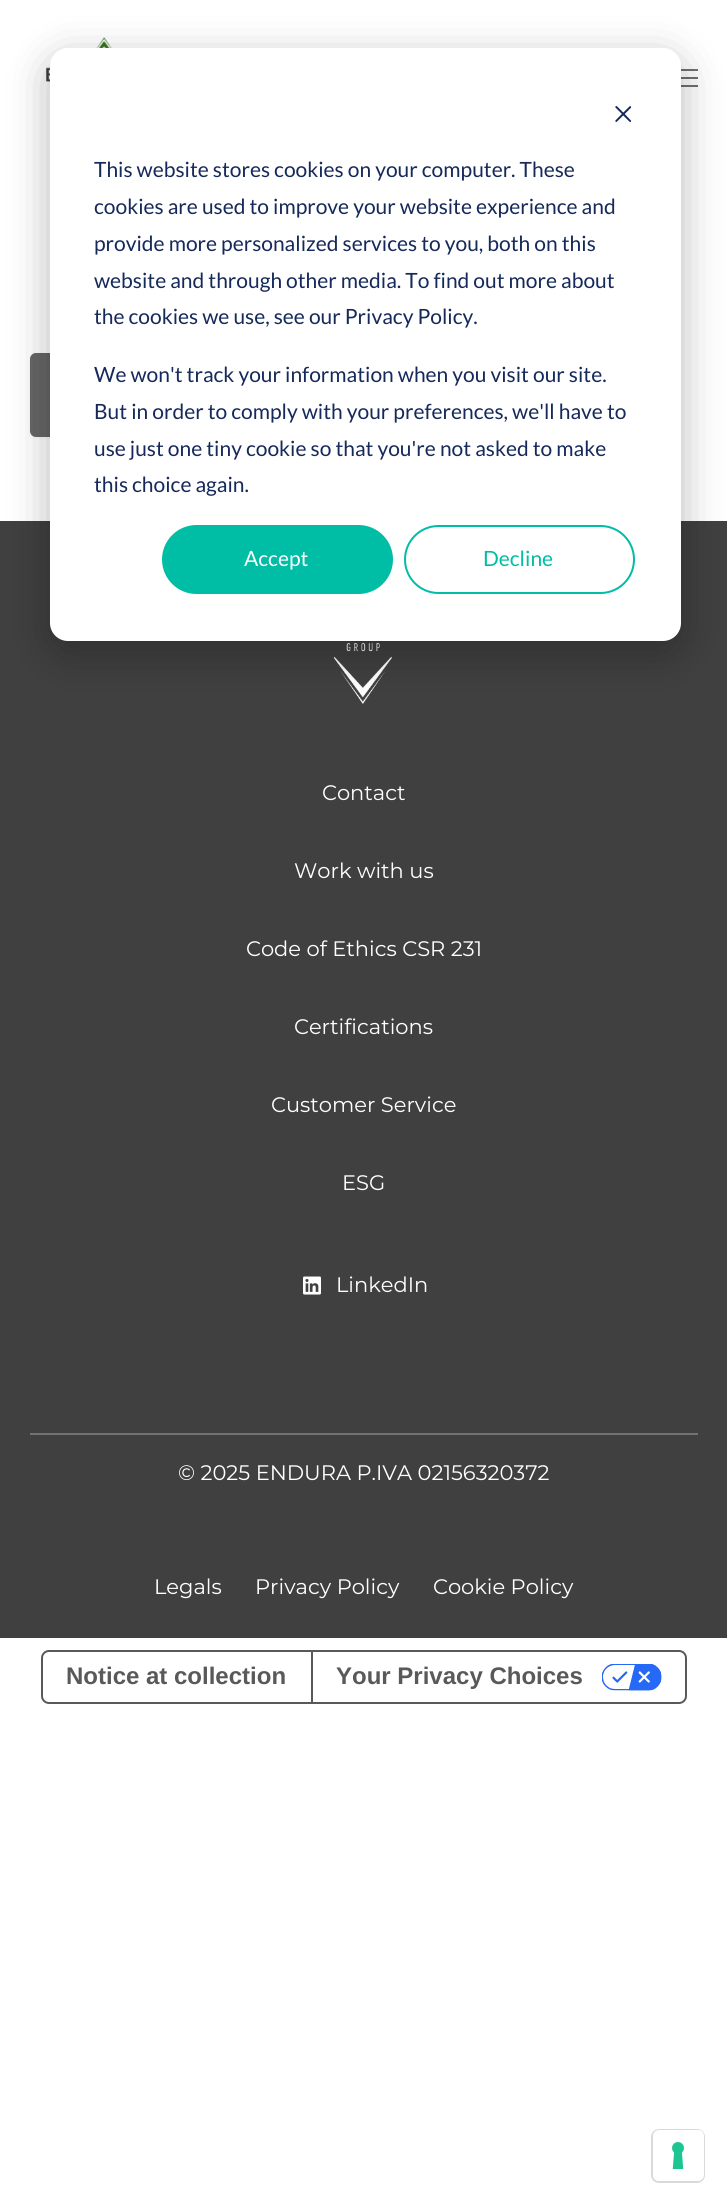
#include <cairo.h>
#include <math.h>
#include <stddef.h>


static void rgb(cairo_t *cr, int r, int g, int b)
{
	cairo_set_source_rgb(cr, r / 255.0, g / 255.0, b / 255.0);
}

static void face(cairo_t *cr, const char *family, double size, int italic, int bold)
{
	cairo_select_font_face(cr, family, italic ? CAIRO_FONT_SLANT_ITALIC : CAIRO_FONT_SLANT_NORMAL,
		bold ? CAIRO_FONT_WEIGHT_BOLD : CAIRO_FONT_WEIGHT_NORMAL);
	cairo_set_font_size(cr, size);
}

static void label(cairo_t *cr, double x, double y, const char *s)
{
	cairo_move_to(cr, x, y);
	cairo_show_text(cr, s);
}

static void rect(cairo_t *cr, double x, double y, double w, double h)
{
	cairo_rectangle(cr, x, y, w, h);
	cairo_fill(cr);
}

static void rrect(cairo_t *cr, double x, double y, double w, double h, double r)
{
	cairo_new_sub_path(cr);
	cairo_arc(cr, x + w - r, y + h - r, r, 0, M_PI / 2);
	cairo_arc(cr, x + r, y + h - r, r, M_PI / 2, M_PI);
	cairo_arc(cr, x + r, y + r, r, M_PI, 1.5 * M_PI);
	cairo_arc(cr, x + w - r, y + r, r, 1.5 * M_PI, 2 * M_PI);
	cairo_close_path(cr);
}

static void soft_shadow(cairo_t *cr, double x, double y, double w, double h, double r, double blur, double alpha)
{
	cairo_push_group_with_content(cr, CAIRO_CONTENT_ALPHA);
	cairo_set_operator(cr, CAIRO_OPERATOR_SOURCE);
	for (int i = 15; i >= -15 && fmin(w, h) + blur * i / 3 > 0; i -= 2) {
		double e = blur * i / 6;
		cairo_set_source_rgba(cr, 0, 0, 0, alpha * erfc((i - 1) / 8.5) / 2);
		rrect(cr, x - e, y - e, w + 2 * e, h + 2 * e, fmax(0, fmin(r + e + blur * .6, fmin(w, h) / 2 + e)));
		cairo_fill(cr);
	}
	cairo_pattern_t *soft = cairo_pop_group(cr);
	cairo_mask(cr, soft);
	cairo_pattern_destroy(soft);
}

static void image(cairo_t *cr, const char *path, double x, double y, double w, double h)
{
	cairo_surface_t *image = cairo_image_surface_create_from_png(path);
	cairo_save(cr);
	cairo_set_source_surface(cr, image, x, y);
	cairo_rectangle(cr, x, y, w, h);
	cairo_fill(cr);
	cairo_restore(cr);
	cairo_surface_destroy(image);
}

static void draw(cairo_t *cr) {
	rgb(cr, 255, 255, 255);
	cairo_paint(cr);
	image(cr, "image1.png", 46, 37, 66, 45);
	rgb(cr, 112, 112, 113);
	rect(cr, 674, 69, 24, 2);
	rect(cr, 674, 77, 24, 2);
	rect(cr, 674, 85, 24, 2);
	rgb(cr, 0, 0, 0);
	soft_shadow(cr, 30, 354, 207, 84, 6, 1.5, 0.05);
	rgb(cr, 102, 102, 102);
	rrect(cr, 30, 353, 207, 84, 6);
	cairo_fill(cr);
	rgb(cr, 64, 64, 65);
	rect(cr, 0, 521, 727, 1117);
	image(cr, "image2.png", 333, 642, 59, 62);
	rgb(cr, 0, 0, 0);
	soft_shadow(cr, 50, 60, 631, 593, 18, 21, 0.28);
	rgb(cr, 255, 255, 255);
	rrect(cr, 50, 48, 631, 593, 18);
	cairo_fill(cr);
	image(cr, "image0.png", 615, 106, 17, 16);
	face(cr, "Lato", 21, 0, 0);
	rgb(cr, 21, 41, 90);
	label(cr, 94, 177, "This website stores cookies on your computer. These");
	label(cr, 94, 214, "cookies are used to improve your website experience and");
	label(cr, 94, 251, "provide more personalized services to you, both on this");
	label(cr, 94, 288, "website and through other media. To find out more about");
	label(cr, 94, 324, "the cookies we use, see our Privacy Policy.");
	label(cr, 94, 382, "We won't track your information when you visit our site.");
	label(cr, 94, 419, "But in order to comply with your preferences, we'll have to");
	label(cr, 94, 456, "use just one tiny cookie so that you're not asked to make");
	label(cr, 94, 492, "this choice again.");
	rgb(cr, 0, 189, 165);
	rrect(cr, 163, 526, 229, 67, 33.5);
	cairo_fill_preserve(cr);
	cairo_stroke(cr);
	rgb(cr, 255, 255, 255);
	label(cr, 244, 566, "Accept");
	rrect(cr, 405, 526, 229, 67, 33.5);
	rgb(cr, 0, 189, 165);
	cairo_stroke(cr);
	label(cr, 483, 566, "Decline");
	face(cr, "Montserrat", 21, 0, 0);
	rgb(cr, 255, 255, 255);
	label(cr, 322, 800, "Contact");
	label(cr, 294, 878, "Work with us");
	label(cr, 246, 956, "Code of Ethics CSR 231");
	label(cr, 294, 1034, "Certifications");
	label(cr, 271, 1112, "Customer Service");
	label(cr, 342, 1190, "ESG");
	image(cr, "image3.png", 303, 1276, 18, 19);
	label(cr, 336, 1292, "LinkedIn");
	rgb(cr, 114, 114, 116);
	rect(cr, 30, 1433, 668, 2);
	rgb(cr, 255, 255, 255);
	label(cr, 178, 1480, "© 2025 ENDURA P.IVA 02156320372");
	label(cr, 154, 1594, "Legals");
	label(cr, 255, 1594, "Privacy Policy");
	label(cr, 433, 1594, "Cookie Policy");
	rrect(cr, 42, 1651, 644, 52, 7);
	rgb(cr, 89, 89, 89);
	cairo_stroke(cr);
	face(cr, "Liberation Sans", 24, 0, 1);
	label(cr, 66, 1684, "Notice at collection");
	rect(cr, 311, 1652, 2, 51);
	label(cr, 336, 1684, "Your Privacy Choices");
	image(cr, "image4.png", 602, 1664, 60, 27);
	rrect(cr, 652, 2130, 52, 52, 7);
	rgb(cr, 217, 217, 217);
	cairo_stroke(cr);
	rgb(cr, 255, 255, 255);
	rrect(cr, 653, 2130, 51, 51, 6);
	cairo_fill(cr);
	image(cr, "image5.png", 672, 2142, 12, 27);
}

int main(void) {
	cairo_surface_t *surface = cairo_image_surface_create(CAIRO_FORMAT_RGB24, 727, 2204);
	cairo_t *cr = cairo_create(surface);
	cairo_font_options_t *options = cairo_font_options_create();
	cairo_font_options_set_hint_metrics(options, CAIRO_HINT_METRICS_OFF);
	cairo_font_options_set_hint_style(options, CAIRO_HINT_STYLE_NONE);
	cairo_set_font_options(cr, options);
	cairo_set_miter_limit(cr, 4);
	draw(cr);
	cairo_surface_write_to_png(surface, "render.png");
	cairo_font_options_destroy(options);
	cairo_destroy(cr);
	cairo_surface_destroy(surface);
	return 0;
}
